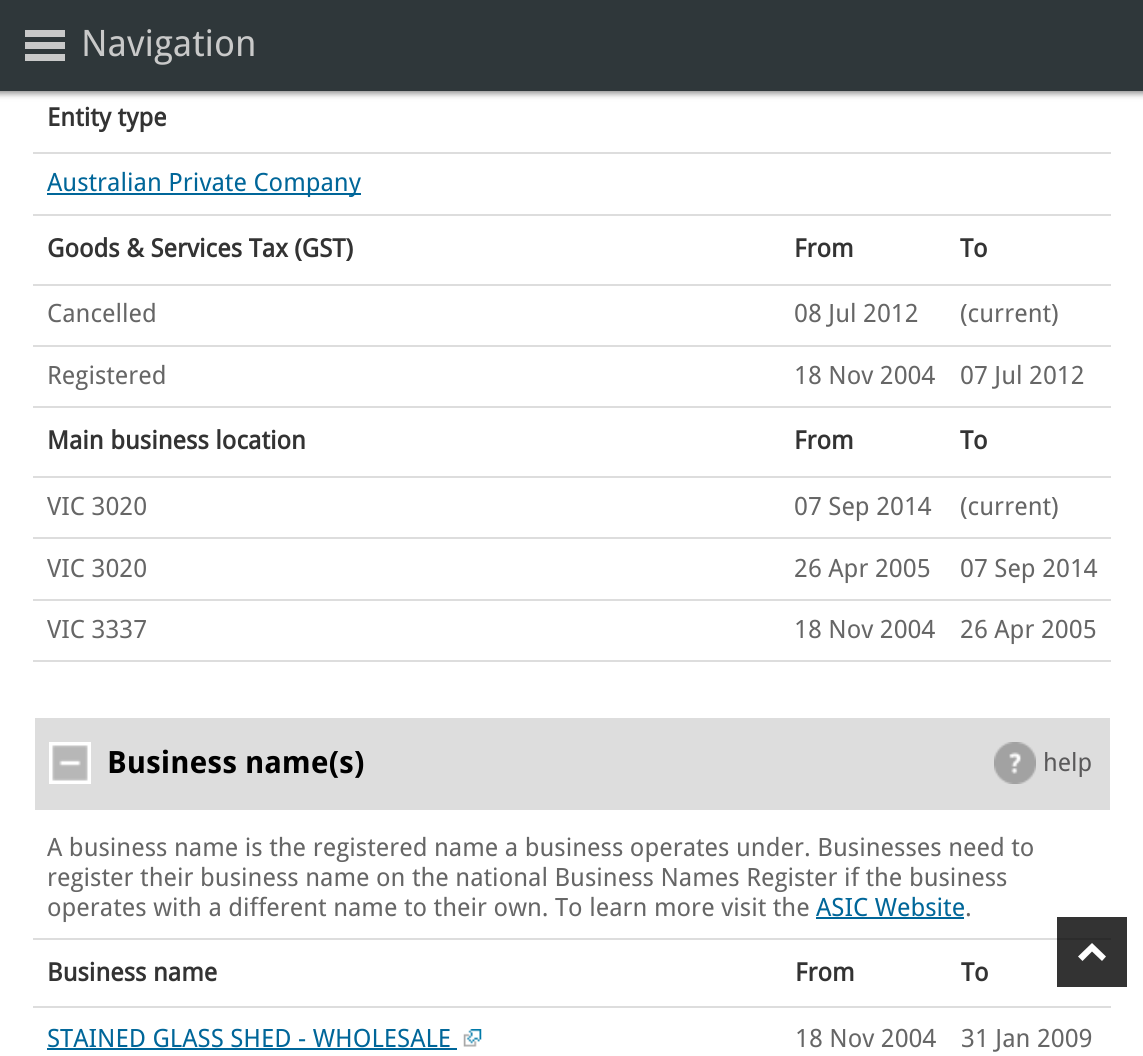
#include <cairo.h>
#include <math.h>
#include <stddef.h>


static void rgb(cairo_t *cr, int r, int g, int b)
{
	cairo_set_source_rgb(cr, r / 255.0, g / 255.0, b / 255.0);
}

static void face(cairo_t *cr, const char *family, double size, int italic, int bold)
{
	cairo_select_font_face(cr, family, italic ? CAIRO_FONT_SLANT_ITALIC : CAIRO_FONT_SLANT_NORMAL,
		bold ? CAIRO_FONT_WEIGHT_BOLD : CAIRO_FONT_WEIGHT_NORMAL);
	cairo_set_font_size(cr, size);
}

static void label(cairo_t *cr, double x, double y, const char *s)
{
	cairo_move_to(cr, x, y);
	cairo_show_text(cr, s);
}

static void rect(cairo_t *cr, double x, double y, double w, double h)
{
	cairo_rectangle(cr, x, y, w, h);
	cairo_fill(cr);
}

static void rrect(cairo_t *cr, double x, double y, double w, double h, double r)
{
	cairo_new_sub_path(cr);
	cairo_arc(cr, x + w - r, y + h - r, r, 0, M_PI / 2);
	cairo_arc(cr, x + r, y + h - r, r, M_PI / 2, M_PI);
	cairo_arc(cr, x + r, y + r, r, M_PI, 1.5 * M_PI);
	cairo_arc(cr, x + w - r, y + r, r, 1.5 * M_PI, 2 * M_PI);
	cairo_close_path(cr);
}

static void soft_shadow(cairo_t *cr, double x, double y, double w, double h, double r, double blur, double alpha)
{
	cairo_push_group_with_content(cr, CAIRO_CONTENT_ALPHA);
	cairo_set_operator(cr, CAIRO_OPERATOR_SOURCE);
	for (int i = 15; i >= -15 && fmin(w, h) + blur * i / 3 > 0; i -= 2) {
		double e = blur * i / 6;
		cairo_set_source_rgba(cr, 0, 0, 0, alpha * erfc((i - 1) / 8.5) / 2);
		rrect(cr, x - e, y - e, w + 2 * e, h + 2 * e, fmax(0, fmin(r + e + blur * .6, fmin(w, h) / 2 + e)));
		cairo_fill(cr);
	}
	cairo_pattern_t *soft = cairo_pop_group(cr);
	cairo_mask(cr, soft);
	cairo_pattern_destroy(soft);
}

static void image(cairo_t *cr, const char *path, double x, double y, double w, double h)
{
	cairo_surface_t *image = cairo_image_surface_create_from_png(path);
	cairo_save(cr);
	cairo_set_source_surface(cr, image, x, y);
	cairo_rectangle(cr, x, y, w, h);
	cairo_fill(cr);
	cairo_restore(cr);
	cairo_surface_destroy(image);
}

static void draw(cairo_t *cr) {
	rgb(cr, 255, 255, 255);
	cairo_paint(cr);
	rgb(cr, 51, 51, 51);
	rect(cr, 1057, 917, 70, 70);
	rgb(cr, 0, 0, 0);
	soft_shadow(cr, -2, 2, 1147, 91, 0, 3.5, 0.5);
	rgb(cr, 47, 55, 58);
	rect(cr, 0, 0, 1143, 91);
	rgb(cr, 201, 201, 201);
	rect(cr, 25, 30, 40, 7);
	rect(cr, 25, 42, 40, 7);
	rect(cr, 25, 54, 40, 7);
	face(cr, "Droid Sans", 36.5, 0, 0);
	label(cr, 81, 56, "Navigation");
	rgb(cr, 221, 221, 221);
	rect(cr, 33, 152, 1078, 2);
	face(cr, "Droid Sans", 25.2, 0, 1);
	rgb(cr, 51, 51, 51);
	label(cr, 47, 126, "Entity type");
	rgb(cr, 221, 221, 221);
	rect(cr, 33, 214, 1078, 2);
	rgb(cr, 0, 102, 153);
	rect(cr, 47, 193, 314, 2);
	face(cr, "Droid Sans", 25.2, 0, 0);
	label(cr, 47, 191, "Australian Private Company");
	face(cr, "Droid Sans", 25.2, 0, 1);
	rgb(cr, 51, 51, 51);
	label(cr, 47, 257, "Goods & Services Tax (GST)");
	label(cr, 794, 257, "From");
	rgb(cr, 221, 221, 221);
	rect(cr, 33, 284, 1078, 2);
	rgb(cr, 51, 51, 51);
	label(cr, 960, 257, "To");
	face(cr, "Droid Sans", 25.2, 0, 0);
	rgb(cr, 102, 102, 102);
	label(cr, 47, 322, "Cancelled");
	label(cr, 794, 322, "08 Jul 2012");
	rgb(cr, 221, 221, 221);
	rect(cr, 33, 345, 1078, 2);
	rgb(cr, 102, 102, 102);
	label(cr, 960, 322, "(current)");
	label(cr, 47, 384, "Registered");
	label(cr, 794, 384, "18 Nov 2004");
	rgb(cr, 221, 221, 221);
	rect(cr, 33, 406, 1078, 2);
	rgb(cr, 102, 102, 102);
	label(cr, 960, 384, "07 Jul 2012");
	face(cr, "Droid Sans", 25.2, 0, 1);
	rgb(cr, 51, 51, 51);
	label(cr, 47, 449, "Main business location");
	label(cr, 794, 449, "From");
	rgb(cr, 221, 221, 221);
	rect(cr, 33, 476, 1078, 2);
	rgb(cr, 51, 51, 51);
	label(cr, 960, 449, "To");
	face(cr, "Droid Sans", 25.2, 0, 0);
	rgb(cr, 102, 102, 102);
	label(cr, 47, 515, "VIC 3020");
	label(cr, 794, 515, "07 Sep 2014");
	rgb(cr, 221, 221, 221);
	rect(cr, 33, 537, 1078, 2);
	rgb(cr, 102, 102, 102);
	label(cr, 960, 515, "(current)");
	label(cr, 47, 577, "VIC 3020");
	label(cr, 794, 577, "26 Apr 2005");
	rgb(cr, 221, 221, 221);
	rect(cr, 33, 599, 1078, 2);
	rgb(cr, 102, 102, 102);
	label(cr, 960, 577, "07 Sep 2014");
	label(cr, 47, 638, "VIC 3337");
	label(cr, 794, 638, "18 Nov 2004");
	rgb(cr, 221, 221, 221);
	rect(cr, 33, 660, 1078, 2);
	rgb(cr, 102, 102, 102);
	label(cr, 960, 638, "26 Apr 2005");
	rgb(cr, 221, 221, 221);
	rect(cr, 35, 718, 1075, 92);
	image(cr, "image0.png", 49, 742, 42, 42);
	face(cr, "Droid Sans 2", 30.75, 0, 1);
	rgb(cr, 0, 0, 0);
	label(cr, 107, 773, "Business name(s)");
	image(cr, "image1.png", 994, 742, 42, 42);
	face(cr, "Droid Sans", 25, 0, 0);
	rgb(cr, 90, 89, 90);
	label(cr, 1043, 771, "help");
	rgb(cr, 221, 221, 221);
	rect(cr, 33, 938, 1024, 2);
	rgb(cr, 44, 44, 44);
	rect(cr, 1057, 938, 54, 2);
	face(cr, "Droid Sans", 25.2, 0, 0);
	rgb(cr, 102, 102, 102);
	label(cr, 47, 856, "A business name is the registered name a business operates under. Businesses need to");
	label(cr, 47, 886, "register their business name on the national Business Names Register if the business");
	label(cr, 47, 916, "operates with a different name to their own.");
	label(cr, 555, 916, "To learn more visit the");
	rgb(cr, 0, 102, 153);
	label(cr, 816, 916, "ASIC Website");
	rgb(cr, 102, 102, 102);
	label(cr, 965, 916, ".");
	rgb(cr, 0, 102, 153);
	rect(cr, 816, 917, 148, 2);
	face(cr, "Droid Sans", 25.2, 0, 1);
	rgb(cr, 51, 51, 51);
	label(cr, 47, 981, "Business name");
	label(cr, 795, 981, "From");
	rgb(cr, 221, 221, 221);
	rect(cr, 33, 1006, 1078, 2);
	rgb(cr, 51, 51, 51);
	label(cr, 961, 981, "To");
	face(cr, "Droid Sans", 25.2, 0, 0);
	rgb(cr, 0, 102, 153);
	label(cr, 47, 1047, "STAINED GLASS SHED - WHOLESALE");
	rect(cr, 47, 1048, 410, 2);
	image(cr, "image2.png", 463, 1029, 19, 18);
	rgb(cr, 102, 102, 102);
	label(cr, 795, 1047, "18 Nov 2004");
	label(cr, 961, 1047, "31 Jan 2009");
	rgb(cr, 255, 255, 255);
	cairo_new_path(cr);
	cairo_move_to(cr, 1092, 943);
	cairo_line_to(cr, 1106, 956.5);
	cairo_line_to(cr, 1102, 961);
	cairo_line_to(cr, 1092, 951.5);
	cairo_line_to(cr, 1082.5, 961);
	cairo_line_to(cr, 1078, 956.5);
	cairo_close_path(cr);
	cairo_fill(cr);
}

int main(void) {
	cairo_surface_t *surface = cairo_image_surface_create(CAIRO_FORMAT_RGB24, 1143, 1056);
	cairo_t *cr = cairo_create(surface);
	cairo_font_options_t *options = cairo_font_options_create();
	cairo_font_options_set_hint_metrics(options, CAIRO_HINT_METRICS_OFF);
	cairo_font_options_set_hint_style(options, CAIRO_HINT_STYLE_NONE);
	cairo_set_font_options(cr, options);
	cairo_set_miter_limit(cr, 4);
	draw(cr);
	cairo_surface_write_to_png(surface, "render.png");
	cairo_font_options_destroy(options);
	cairo_destroy(cr);
	cairo_surface_destroy(surface);
	return 0;
}
